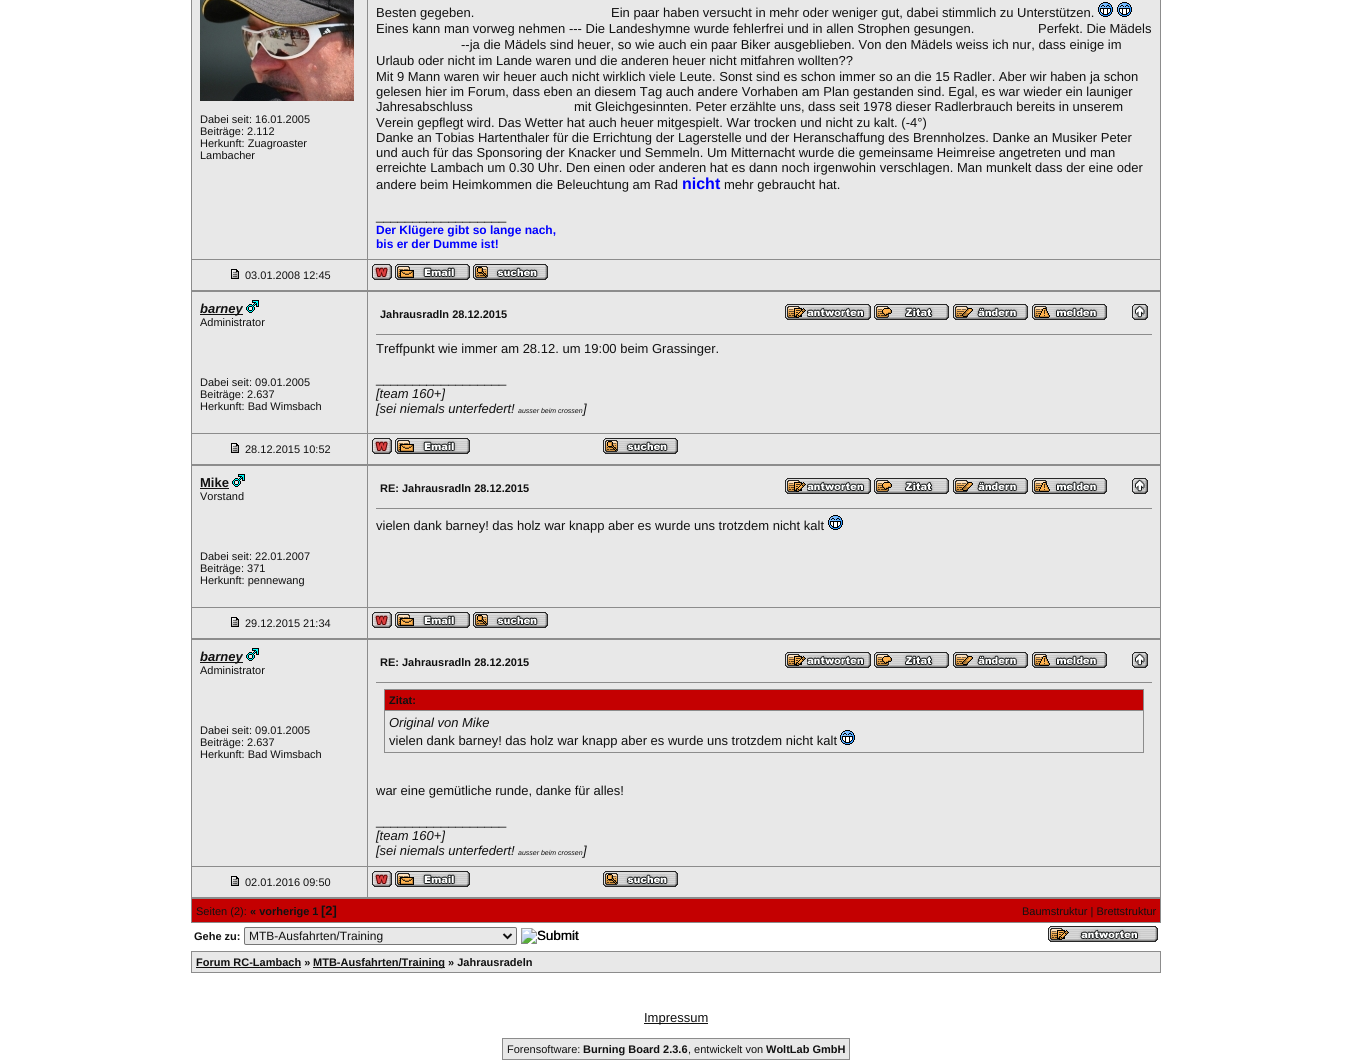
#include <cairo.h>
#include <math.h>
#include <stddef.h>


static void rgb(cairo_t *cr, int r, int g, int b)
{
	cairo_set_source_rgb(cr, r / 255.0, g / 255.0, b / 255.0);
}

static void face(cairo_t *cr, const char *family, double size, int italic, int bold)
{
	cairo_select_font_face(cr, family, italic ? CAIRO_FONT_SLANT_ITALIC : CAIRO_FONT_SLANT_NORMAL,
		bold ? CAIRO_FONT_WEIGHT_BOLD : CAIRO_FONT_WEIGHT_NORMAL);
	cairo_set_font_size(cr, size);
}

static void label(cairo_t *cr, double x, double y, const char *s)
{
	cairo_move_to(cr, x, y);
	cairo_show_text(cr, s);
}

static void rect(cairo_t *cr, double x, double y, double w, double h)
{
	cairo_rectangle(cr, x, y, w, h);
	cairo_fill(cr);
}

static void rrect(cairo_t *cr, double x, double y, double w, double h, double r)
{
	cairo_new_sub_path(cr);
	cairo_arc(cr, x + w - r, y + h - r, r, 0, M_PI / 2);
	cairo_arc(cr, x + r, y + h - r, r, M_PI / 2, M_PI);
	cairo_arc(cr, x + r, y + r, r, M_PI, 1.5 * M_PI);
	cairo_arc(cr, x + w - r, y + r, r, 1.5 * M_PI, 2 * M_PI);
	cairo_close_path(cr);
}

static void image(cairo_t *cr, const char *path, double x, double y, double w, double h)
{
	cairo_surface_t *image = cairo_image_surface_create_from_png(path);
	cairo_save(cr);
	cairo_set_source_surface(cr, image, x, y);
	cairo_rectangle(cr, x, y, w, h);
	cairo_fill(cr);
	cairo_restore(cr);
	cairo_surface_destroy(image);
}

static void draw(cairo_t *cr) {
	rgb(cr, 255, 255, 255);
	cairo_paint(cr);
	rgb(cr, 140, 140, 140);
	rect(cr, 191, 0, 970, 923);
	rgb(cr, 232, 232, 232);
	rect(cr, 192, 0, 175, 259);
	image(cr, "image0.png", 200, 0, 154, 101);
	face(cr, "Liberation Sans", 11, 0, 0);
	rgb(cr, 17, 17, 17);
	label(cr, 200, 123, "Dabei seit: 16.01.2005");
	label(cr, 200, 135, "Beiträge: 2.112");
	label(cr, 200, 147, "Herkunft: Zuagroaster");
	label(cr, 200, 159, "Lambacher");
	rgb(cr, 232, 232, 232);
	rect(cr, 368, 0, 792, 259);
	face(cr, "Liberation Sans", 13, 0, 0);
	rgb(cr, 17, 17, 17);
	label(cr, 376, 17, "Besten gegeben.");
	label(cr, 611, 17, "Ein paar haben versucht in mehr oder weniger gut, dabei stimmlich zu Unterstützen.");
	image(cr, "image1.png", 1098, 2, 15, 15);
	image(cr, "image1.png", 1117, 2, 15, 15);
	label(cr, 376, 33, "Eines kann man vorweg nehmen --- Die Landeshymne wurde fehlerfrei und in allen Strophen gesungen.");
	label(cr, 1038, 33, "Perfekt. Die Mädels");
	label(cr, 461, 49, "--ja die Mädels sind heuer, so wie auch ein paar Biker ausgeblieben. Von den Mädels weiss ich nur, dass einige im");
	label(cr, 376, 65, "Urlaub oder nicht im Lande waren und die anderen heuer nicht mitfahren wollten?\077");
	label(cr, 376, 81, "Mit 9 Mann waren wir heuer auch nicht wirklich viele Leute. Sonst sind es schon immer so an die 15 Radler. Aber wir haben ja schon");
	label(cr, 376, 96, "gelesen hier im Forum, dass eben an diesem Tag auch andere Vorhaben am Plan gestanden sind. Egal, es war wieder ein launiger");
	label(cr, 376, 111, "Jahresabschluss");
	label(cr, 574, 111, "mit Gleichgesinnten. Peter erzählte uns, dass seit 1978 dieser Radlerbrauch bereits in unserem");
	label(cr, 376, 127, "Verein gepflegt wird. Das Wetter hat auch heuer mitgespielt. War trocken und nicht zu kalt. (-4°)");
	label(cr, 376, 142, "Danke an Tobias Hartenthaler für die Errichtung der Lagerstelle und der Heranschaffung des Brennholzes. Danke an Musiker Peter");
	label(cr, 376, 157, "und auch für das Sponsoring der Knacker und Semmeln. Um Mitternacht wurde die gemeinsame Heimreise angetreten und man");
	label(cr, 376, 172, "erreichte Lambach um 0.30 Uhr. Den einen oder anderen hat es dann noch irgenwohin verschlagen. Man munkelt dass der eine oder");
	label(cr, 376, 189, "andere beim Heimkommen die Beleuchtung am Rad");
	face(cr, "Liberation Sans", 16, 0, 1);
	rgb(cr, 0, 0, 255);
	label(cr, 682, 189, "nicht");
	face(cr, "Liberation Sans", 13, 0, 0);
	rgb(cr, 17, 17, 17);
	label(cr, 724, 189, "mehr gebraucht hat.");
	label(cr, 376, 220, "__________________");
	face(cr, "Liberation Sans", 12, 0, 1);
	rgb(cr, 0, 0, 255);
	label(cr, 376, 234, "Der Klügere gibt so lange nach,");
	label(cr, 376, 248, "bis er der Dumme ist!");
	rgb(cr, 232, 232, 232);
	rect(cr, 192, 260, 175, 30);
	image(cr, "image2.png", 231, 269, 8, 10);
	face(cr, "Liberation Sans", 11, 0, 0);
	rgb(cr, 17, 17, 17);
	label(cr, 245, 279, "03.01.2008 12:45");
	rgb(cr, 232, 232, 232);
	rect(cr, 368, 260, 792, 30);
	image(cr, "image3.png", 372, 264, 20, 16);
	image(cr, "image4.png", 395, 264, 75, 16);
	image(cr, "image5.png", 473, 264, 75, 16);
	rect(cr, 192, 292, 175, 141);
	rgb(cr, 17, 17, 17);
	rect(cr, 200, 314, 43, 1);
	face(cr, "Liberation Sans", 13, 1, 1);
	label(cr, 200, 313, "barney");
	image(cr, "image6.png", 246, 300, 13, 13);
	face(cr, "Liberation Sans", 11, 0, 0);
	label(cr, 200, 326, "Administrator");
	label(cr, 200, 386, "Dabei seit: 09.01.2005");
	label(cr, 200, 398, "Beiträge: 2.637");
	label(cr, 200, 410, "Herkunft: Bad Wimsbach");
	rgb(cr, 232, 232, 232);
	rect(cr, 368, 292, 792, 141);
	face(cr, "Liberation Sans", 11, 0, 1);
	rgb(cr, 17, 17, 17);
	label(cr, 380, 318, "Jahrausradln 28.12.2015");
	image(cr, "image7.png", 785, 304, 86, 16);
	image(cr, "image8.png", 874, 304, 75, 16);
	image(cr, "image9.png", 953, 304, 75, 16);
	image(cr, "image10.png", 1032, 304, 75, 16);
	image(cr, "image11.png", 1132, 304, 16, 16);
	rgb(cr, 140, 140, 140);
	rect(cr, 376, 334, 776, 1);
	face(cr, "Liberation Sans", 13, 0, 0);
	rgb(cr, 17, 17, 17);
	label(cr, 376, 353, "Treffpunkt wie immer am 28.12. um 19:00 beim Grassinger.");
	label(cr, 376, 383, "__________________");
	face(cr, "Liberation Sans", 13, 1, 0);
	label(cr, 376, 398, "[team 160+]");
	label(cr, 376, 413, "[sei niemals unterfedert!");
	face(cr, "Liberation Sans", 7, 1, 0);
	label(cr, 518, 413, "ausser beim crossen");
	face(cr, "Liberation Sans", 13, 1, 0);
	label(cr, 583, 413, "]");
	rgb(cr, 232, 232, 232);
	rect(cr, 192, 434, 175, 30);
	image(cr, "image2.png", 231, 443, 8, 10);
	face(cr, "Liberation Sans", 11, 0, 0);
	rgb(cr, 17, 17, 17);
	label(cr, 245, 453, "28.12.2015 10:52");
	rgb(cr, 232, 232, 232);
	rect(cr, 368, 434, 792, 30);
	image(cr, "image3.png", 372, 438, 20, 16);
	image(cr, "image4.png", 395, 438, 75, 16);
	image(cr, "image5.png", 603, 438, 75, 16);
	rect(cr, 192, 466, 175, 141);
	face(cr, "Liberation Sans", 13, 0, 1);
	rgb(cr, 17, 17, 17);
	label(cr, 200, 487, "Mike");
	rect(cr, 200, 488, 29, 1);
	image(cr, "image6.png", 232, 474, 13, 13);
	face(cr, "Liberation Sans", 11, 0, 0);
	label(cr, 200, 500, "Vorstand");
	label(cr, 200, 560, "Dabei seit: 22.01.2007");
	label(cr, 200, 572, "Beiträge: 371");
	label(cr, 200, 584, "Herkunft: pennewang");
	rgb(cr, 232, 232, 232);
	rect(cr, 368, 466, 792, 141);
	face(cr, "Liberation Sans", 11, 0, 1);
	rgb(cr, 17, 17, 17);
	label(cr, 380, 492, "RE: Jahrausradln 28.12.2015");
	image(cr, "image7.png", 785, 478, 86, 16);
	image(cr, "image8.png", 874, 478, 75, 16);
	image(cr, "image9.png", 953, 478, 75, 16);
	image(cr, "image10.png", 1032, 478, 75, 16);
	image(cr, "image11.png", 1132, 478, 16, 16);
	rgb(cr, 140, 140, 140);
	rect(cr, 376, 508, 776, 1);
	face(cr, "Liberation Sans", 13, 0, 0);
	rgb(cr, 17, 17, 17);
	label(cr, 376, 530, "vielen dank barney! das holz war knapp aber es wurde uns trotzdem nicht kalt");
	image(cr, "image1.png", 828, 515, 15, 15);
	rgb(cr, 232, 232, 232);
	rect(cr, 192, 608, 175, 30);
	image(cr, "image2.png", 231, 617, 8, 10);
	face(cr, "Liberation Sans", 11, 0, 0);
	rgb(cr, 17, 17, 17);
	label(cr, 245, 627, "29.12.2015 21:34");
	rgb(cr, 232, 232, 232);
	rect(cr, 368, 608, 792, 30);
	image(cr, "image3.png", 372, 612, 20, 16);
	image(cr, "image4.png", 395, 612, 75, 16);
	image(cr, "image5.png", 473, 612, 75, 16);
	rect(cr, 192, 640, 175, 226);
	rgb(cr, 17, 17, 17);
	rect(cr, 200, 662, 43, 1);
	face(cr, "Liberation Sans", 13, 1, 1);
	label(cr, 200, 661, "barney");
	image(cr, "image6.png", 246, 648, 13, 13);
	face(cr, "Liberation Sans", 11, 0, 0);
	label(cr, 200, 674, "Administrator");
	label(cr, 200, 734, "Dabei seit: 09.01.2005");
	label(cr, 200, 746, "Beiträge: 2.637");
	label(cr, 200, 758, "Herkunft: Bad Wimsbach");
	rgb(cr, 232, 232, 232);
	rect(cr, 368, 640, 792, 226);
	face(cr, "Liberation Sans", 11, 0, 1);
	rgb(cr, 17, 17, 17);
	label(cr, 380, 666, "RE: Jahrausradln 28.12.2015");
	image(cr, "image7.png", 785, 652, 86, 16);
	image(cr, "image8.png", 874, 652, 75, 16);
	image(cr, "image9.png", 953, 652, 75, 16);
	image(cr, "image10.png", 1032, 652, 75, 16);
	image(cr, "image11.png", 1132, 652, 16, 16);
	rgb(cr, 140, 140, 140);
	rect(cr, 376, 682, 776, 1);
	rect(cr, 384, 689, 760, 64);
	rgb(cr, 196, 0, 1);
	rect(cr, 385, 690, 758, 20);
	rgb(cr, 17, 17, 17);
	label(cr, 389, 704, "Zitat:");
	rgb(cr, 232, 232, 232);
	rect(cr, 385, 711, 758, 41);
	face(cr, "Liberation Sans", 13, 1, 0);
	rgb(cr, 17, 17, 17);
	label(cr, 389, 727, "Original von Mike");
	face(cr, "Liberation Sans", 13, 0, 0);
	label(cr, 389, 745, "vielen dank barney! das holz war knapp aber es wurde uns trotzdem nicht kalt");
	image(cr, "image1.png", 840, 730, 15, 15);
	label(cr, 376, 795, "war eine gemütliche runde, danke für alles!");
	label(cr, 376, 825, "__________________");
	face(cr, "Liberation Sans", 13, 1, 0);
	label(cr, 376, 840, "[team 160+]");
	label(cr, 376, 855, "[sei niemals unterfedert!");
	face(cr, "Liberation Sans", 7, 1, 0);
	label(cr, 518, 855, "ausser beim crossen");
	face(cr, "Liberation Sans", 13, 1, 0);
	label(cr, 583, 855, "]");
	rgb(cr, 232, 232, 232);
	rect(cr, 192, 867, 175, 30);
	image(cr, "image2.png", 231, 876, 8, 10);
	face(cr, "Liberation Sans", 11, 0, 0);
	rgb(cr, 17, 17, 17);
	label(cr, 245, 886, "02.01.2016 09:50");
	rgb(cr, 232, 232, 232);
	rect(cr, 368, 867, 792, 30);
	image(cr, "image3.png", 372, 871, 20, 16);
	image(cr, "image4.png", 395, 871, 75, 16);
	image(cr, "image5.png", 603, 871, 75, 16);
	rgb(cr, 196, 0, 1);
	rect(cr, 192, 899, 968, 23);
	rgb(cr, 17, 17, 17);
	label(cr, 196, 915, "Seiten (2):");
	face(cr, "Liberation Sans", 11, 0, 1);
	label(cr, 250, 915, "« vorherige 1");
	face(cr, "Liberation Sans", 13, 0, 1);
	label(cr, 321, 915, "[2]");
	face(cr, "Liberation Sans", 11, 0, 0);
	label(cr, 1022, 915, "Baumstruktur | Brettstruktur");
	face(cr, "Liberation Sans", 11, 0, 1);
	label(cr, 194, 940, "Gehe zu:");
	rgb(cr, 232, 232, 232);
	rrect(cr, 244.5, 927.5, 272, 17, 1.5);
	cairo_fill_preserve(cr);
	rgb(cr, 118, 118, 118);
	cairo_set_line_width(cr, 1);
	cairo_stroke(cr);
	cairo_new_path(cr);
	cairo_move_to(cr, 503.5, 934);
	cairo_line_to(cr, 507.5, 938);
	cairo_line_to(cr, 511.5, 934);
	rgb(cr, 17, 17, 17);
	cairo_set_line_width(cr, 2);
	cairo_stroke(cr);
	face(cr, "Liberation Sans", 12, 0, 0);
	label(cr, 249, 940, "MTB-Ausfahrten/Training");
	image(cr, "image12.png", 521, 928, 57, 16);
	face(cr, "Liberation Sans", 13.5, 0, 0);
	rgb(cr, 0, 0, 0);
	label(cr, 537, 940, "Submit");
	image(cr, "image13.png", 1048, 926, 110, 16);
	rgb(cr, 140, 140, 140);
	rect(cr, 191, 951, 970, 22);
	rgb(cr, 232, 232, 232);
	rect(cr, 192, 952, 968, 20);
	face(cr, "Liberation Sans", 11, 0, 1);
	rgb(cr, 17, 17, 17);
	label(cr, 196, 966, "Forum RC-Lambach »");
	rect(cr, 196, 967, 105, 1);
	rect(cr, 313, 967, 132, 1);
	label(cr, 313, 966, "MTB-Ausfahrten/Training » Jahrausradeln");
	rect(cr, 644, 1023, 64, 1);
	face(cr, "Liberation Sans", 13, 0, 0);
	label(cr, 644, 1022, "Impressum");
	rgb(cr, 140, 140, 140);
	rect(cr, 502, 1038, 348, 22);
	rgb(cr, 232, 232, 232);
	rect(cr, 503, 1039, 346, 20);
	face(cr, "Liberation Sans", 11, 0, 0);
	rgb(cr, 17, 17, 17);
	label(cr, 507, 1053, "Forensoftware:");
	face(cr, "Liberation Sans", 11, 0, 1);
	label(cr, 583, 1053, "Burning Board 2.3.6");
	face(cr, "Liberation Sans", 11, 0, 0);
	label(cr, 688, 1053, ", entwickelt von");
	face(cr, "Liberation Sans", 11, 0, 1);
	label(cr, 766, 1053, "WoltLab GmbH");
}

int main(void) {
	cairo_surface_t *surface = cairo_image_surface_create(CAIRO_FORMAT_RGB24, 1354, 1060);
	cairo_t *cr = cairo_create(surface);
	cairo_font_options_t *options = cairo_font_options_create();
	cairo_font_options_set_hint_metrics(options, CAIRO_HINT_METRICS_OFF);
	cairo_font_options_set_hint_style(options, CAIRO_HINT_STYLE_NONE);
	cairo_set_font_options(cr, options);
	cairo_set_miter_limit(cr, 4);
	draw(cr);
	cairo_surface_write_to_png(surface, "render.png");
	cairo_font_options_destroy(options);
	cairo_destroy(cr);
	cairo_surface_destroy(surface);
	return 0;
}
